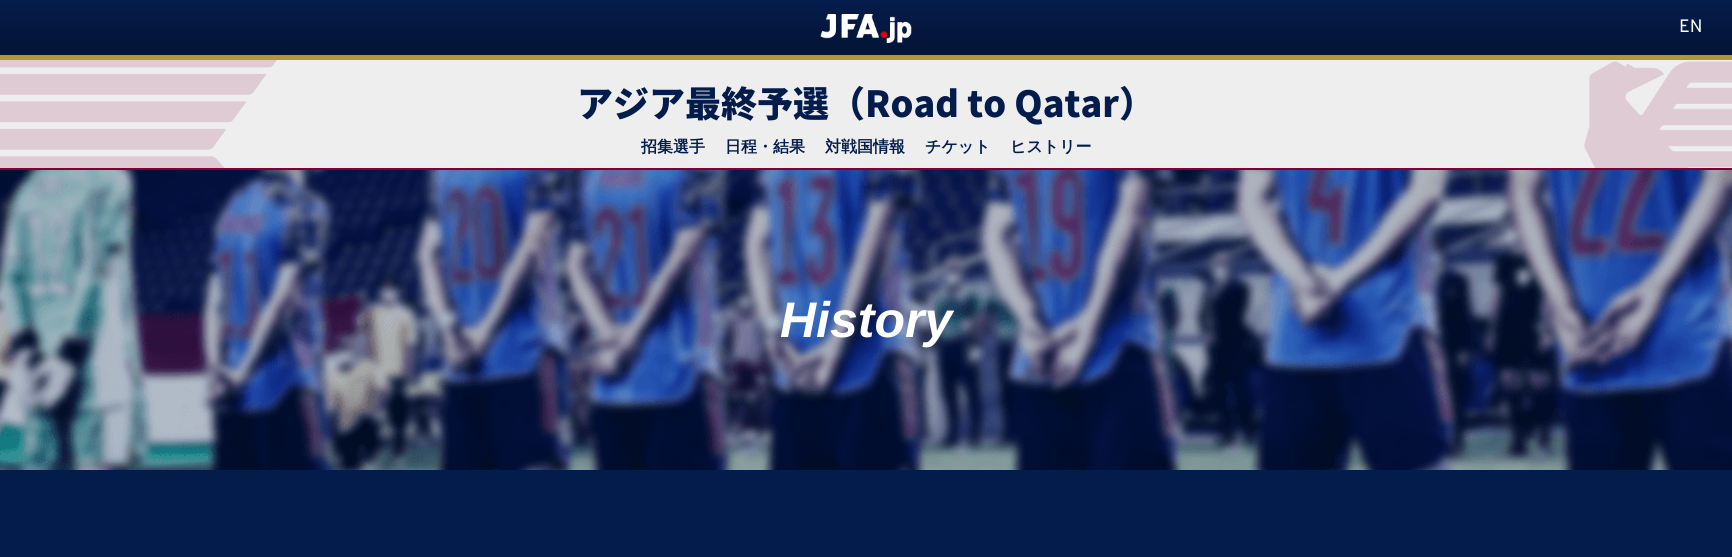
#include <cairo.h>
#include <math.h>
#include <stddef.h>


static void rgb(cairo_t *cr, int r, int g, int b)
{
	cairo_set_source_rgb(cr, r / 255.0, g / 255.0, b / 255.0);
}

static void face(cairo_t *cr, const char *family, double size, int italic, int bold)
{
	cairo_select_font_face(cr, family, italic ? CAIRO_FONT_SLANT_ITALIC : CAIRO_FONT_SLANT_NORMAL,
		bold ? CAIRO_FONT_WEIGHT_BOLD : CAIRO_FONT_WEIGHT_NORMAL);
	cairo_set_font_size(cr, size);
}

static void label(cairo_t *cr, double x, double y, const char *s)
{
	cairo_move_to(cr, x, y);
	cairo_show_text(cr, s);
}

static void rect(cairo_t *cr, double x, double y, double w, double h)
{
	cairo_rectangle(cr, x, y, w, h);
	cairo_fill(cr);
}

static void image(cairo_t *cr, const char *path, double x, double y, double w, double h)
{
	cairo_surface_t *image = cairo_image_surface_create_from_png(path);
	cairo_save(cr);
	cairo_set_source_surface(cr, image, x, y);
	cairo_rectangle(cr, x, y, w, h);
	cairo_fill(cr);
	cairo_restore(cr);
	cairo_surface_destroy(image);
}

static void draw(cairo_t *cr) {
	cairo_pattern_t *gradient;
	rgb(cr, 4, 28, 75);
	cairo_paint(cr);
	gradient = cairo_pattern_create_linear(866, 0, 866, 55);
	cairo_pattern_add_color_stop_rgba(gradient, 0, 0.016, 0.11, 0.294, 1);
	cairo_pattern_add_color_stop_rgba(gradient, 1, 0.012, 0.078, 0.208, 1);
	cairo_set_source(cr, gradient);
	cairo_pattern_destroy(gradient);
	rect(cr, 0, 6, 1732, 49);
	image(cr, "image0.png", 820, 14, 92, 29);
	face(cr, "Overpass", 18, 0, 0);
	rgb(cr, 255, 255, 255);
	label(cr, 1679, 32, "EN");
	rgb(cr, 238, 238, 238);
	rect(cr, 0, 60, 1732, 108);
	image(cr, "image1.png", 0, 60, 1732, 108);
	rgb(cr, 176, 150, 57);
	rect(cr, 0, 55, 1732, 5);
	rgb(cr, 128, 2, 53);
	rect(cr, 0, 168, 1732, 2);
	face(cr, "Noto Sans JP Black", 36, 0, 0);
	rgb(cr, 4, 28, 75);
	label(cr, 577, 117, "アジア最終予選（Road to Qatar）");
	face(cr, "WenQuanYi Zen Hei", 16, 0, 1);
	label(cr, 641, 152, "招集選手");
	label(cr, 725, 152, "日程・結果");
	label(cr, 825, 152, "対戦国情報");
	label(cr, 925, 152, "チケット");
	label(cr, 1010, 152, "ヒストリー");
	image(cr, "image2.png", 0, 170, 1732, 300);
	face(cr, "Liberation Sans", 50, 1, 1);
	rgb(cr, 255, 255, 255);
	label(cr, 780, 337, "History");
}

int main(void) {
	cairo_surface_t *surface = cairo_image_surface_create(CAIRO_FORMAT_RGB24, 1732, 557);
	cairo_t *cr = cairo_create(surface);
	cairo_font_options_t *options = cairo_font_options_create();
	cairo_font_options_set_hint_metrics(options, CAIRO_HINT_METRICS_OFF);
	cairo_font_options_set_hint_style(options, CAIRO_HINT_STYLE_NONE);
	cairo_set_font_options(cr, options);
	cairo_set_miter_limit(cr, 4);
	draw(cr);
	cairo_surface_write_to_png(surface, "render.png");
	cairo_font_options_destroy(options);
	cairo_destroy(cr);
	cairo_surface_destroy(surface);
	return 0;
}
